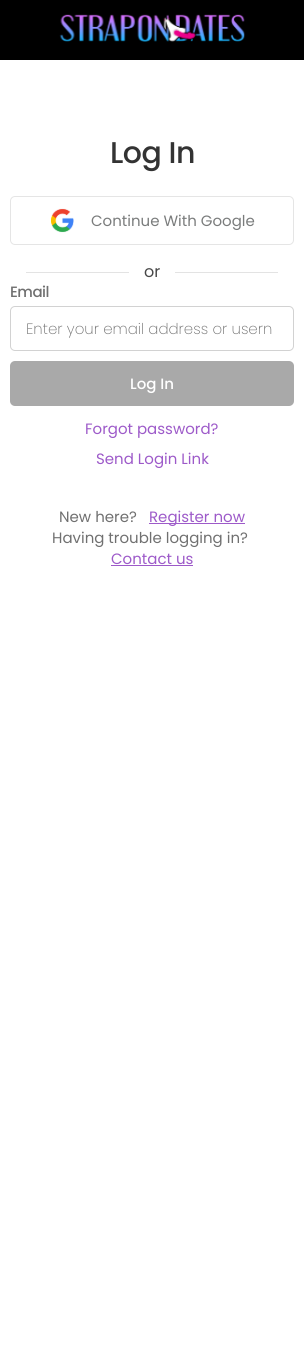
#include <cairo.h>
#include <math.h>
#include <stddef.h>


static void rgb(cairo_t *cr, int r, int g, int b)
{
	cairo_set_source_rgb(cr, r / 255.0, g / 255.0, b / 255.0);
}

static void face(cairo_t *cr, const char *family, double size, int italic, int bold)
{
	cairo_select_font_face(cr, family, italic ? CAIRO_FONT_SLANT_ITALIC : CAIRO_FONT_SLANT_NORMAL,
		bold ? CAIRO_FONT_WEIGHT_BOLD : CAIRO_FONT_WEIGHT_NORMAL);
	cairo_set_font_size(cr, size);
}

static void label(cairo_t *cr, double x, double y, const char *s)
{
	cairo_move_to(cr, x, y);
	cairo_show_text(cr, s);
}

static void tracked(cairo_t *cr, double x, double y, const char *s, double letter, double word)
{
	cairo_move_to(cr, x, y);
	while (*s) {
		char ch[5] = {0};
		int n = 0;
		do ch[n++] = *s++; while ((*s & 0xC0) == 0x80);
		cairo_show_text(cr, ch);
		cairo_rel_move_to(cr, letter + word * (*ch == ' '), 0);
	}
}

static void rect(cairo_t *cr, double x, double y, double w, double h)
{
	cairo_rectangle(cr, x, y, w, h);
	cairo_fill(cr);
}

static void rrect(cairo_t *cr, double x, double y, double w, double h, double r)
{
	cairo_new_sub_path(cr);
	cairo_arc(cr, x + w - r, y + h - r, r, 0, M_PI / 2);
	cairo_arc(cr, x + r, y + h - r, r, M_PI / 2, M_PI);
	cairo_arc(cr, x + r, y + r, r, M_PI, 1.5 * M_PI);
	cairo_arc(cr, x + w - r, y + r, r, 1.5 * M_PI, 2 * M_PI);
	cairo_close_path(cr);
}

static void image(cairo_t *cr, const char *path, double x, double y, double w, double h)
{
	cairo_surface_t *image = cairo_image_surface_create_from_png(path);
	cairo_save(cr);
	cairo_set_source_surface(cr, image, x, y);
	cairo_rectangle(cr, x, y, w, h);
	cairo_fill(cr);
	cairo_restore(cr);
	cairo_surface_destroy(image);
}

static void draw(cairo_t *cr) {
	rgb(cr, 255, 255, 255);
	cairo_paint(cr);
	rgb(cr, 0, 0, 0);
	rect(cr, 0, 0, 304, 60);
	image(cr, "image0.png", 59, 14, 186, 28);
	face(cr, "Poppins Medium", 30, 0, 0);
	rgb(cr, 51, 51, 51);
	tracked(cr, 110, 163, "Log In", -0.5, 0);
	rrect(cr, 10.5, 196.5, 283, 48, 4.5);
	rgb(cr, 229, 229, 229);
	cairo_set_line_width(cr, 1);
	cairo_stroke(cr);
	image(cr, "image1.png", 50, 208, 24, 25);
	face(cr, "Poppins", 15, 0, 0);
	rgb(cr, 122, 124, 124);
	label(cr, 91, 226, "Continue With Google");
	rgb(cr, 227, 227, 227);
	rect(cr, 26, 272, 252, 1);
	rgb(cr, 255, 255, 255);
	rect(cr, 129, 272, 46, 1);
	face(cr, "Poppins", 16, 0, 0);
	rgb(cr, 72, 72, 72);
	label(cr, 144, 277, "or");
	face(cr, "Poppins Medium", 15, 0, 0);
	rgb(cr, 112, 112, 112);
	tracked(cr, 10, 297, "Email", -0.5, 0);
	rrect(cr, 10.5, 306.5, 283, 44, 4.5);
	rgb(cr, 210, 210, 210);
	cairo_stroke(cr);
	face(cr, "Poppins ExtraLight", 15, 0, 0);
	rgb(cr, 112, 112, 112);
	label(cr, 26, 334, "Enter your email address or usern");
	rgb(cr, 169, 169, 169);
	rrect(cr, 10, 361, 284, 45, 5);
	cairo_fill(cr);
	face(cr, "Poppins Medium", 15, 0, 0);
	rgb(cr, 255, 255, 255);
	label(cr, 130, 389, "Log In");
	face(cr, "Poppins", 15, 0, 0);
	rgb(cr, 157, 90, 201);
	label(cr, 85, 434, "Forgot password?");
	label(cr, 96, 464, "Send Login Link");
	rgb(cr, 112, 112, 112);
	label(cr, 59, 522, "New here?");
	rgb(cr, 157, 90, 201);
	rect(cr, 149, 523, 96, 1);
	label(cr, 149, 522, "Register now");
	rgb(cr, 112, 112, 112);
	label(cr, 52, 543, "Having trouble logging in?");
	rgb(cr, 157, 90, 201);
	label(cr, 111, 564, "Contact us");
	rect(cr, 111, 565, 82, 1);
}

int main(void) {
	cairo_surface_t *surface = cairo_image_surface_create(CAIRO_FORMAT_RGB24, 304, 1371);
	cairo_t *cr = cairo_create(surface);
	cairo_font_options_t *options = cairo_font_options_create();
	cairo_font_options_set_hint_metrics(options, CAIRO_HINT_METRICS_OFF);
	cairo_font_options_set_hint_style(options, CAIRO_HINT_STYLE_NONE);
	cairo_set_font_options(cr, options);
	cairo_set_miter_limit(cr, 4);
	draw(cr);
	cairo_surface_write_to_png(surface, "render.png");
	cairo_font_options_destroy(options);
	cairo_destroy(cr);
	cairo_surface_destroy(surface);
	return 0;
}
